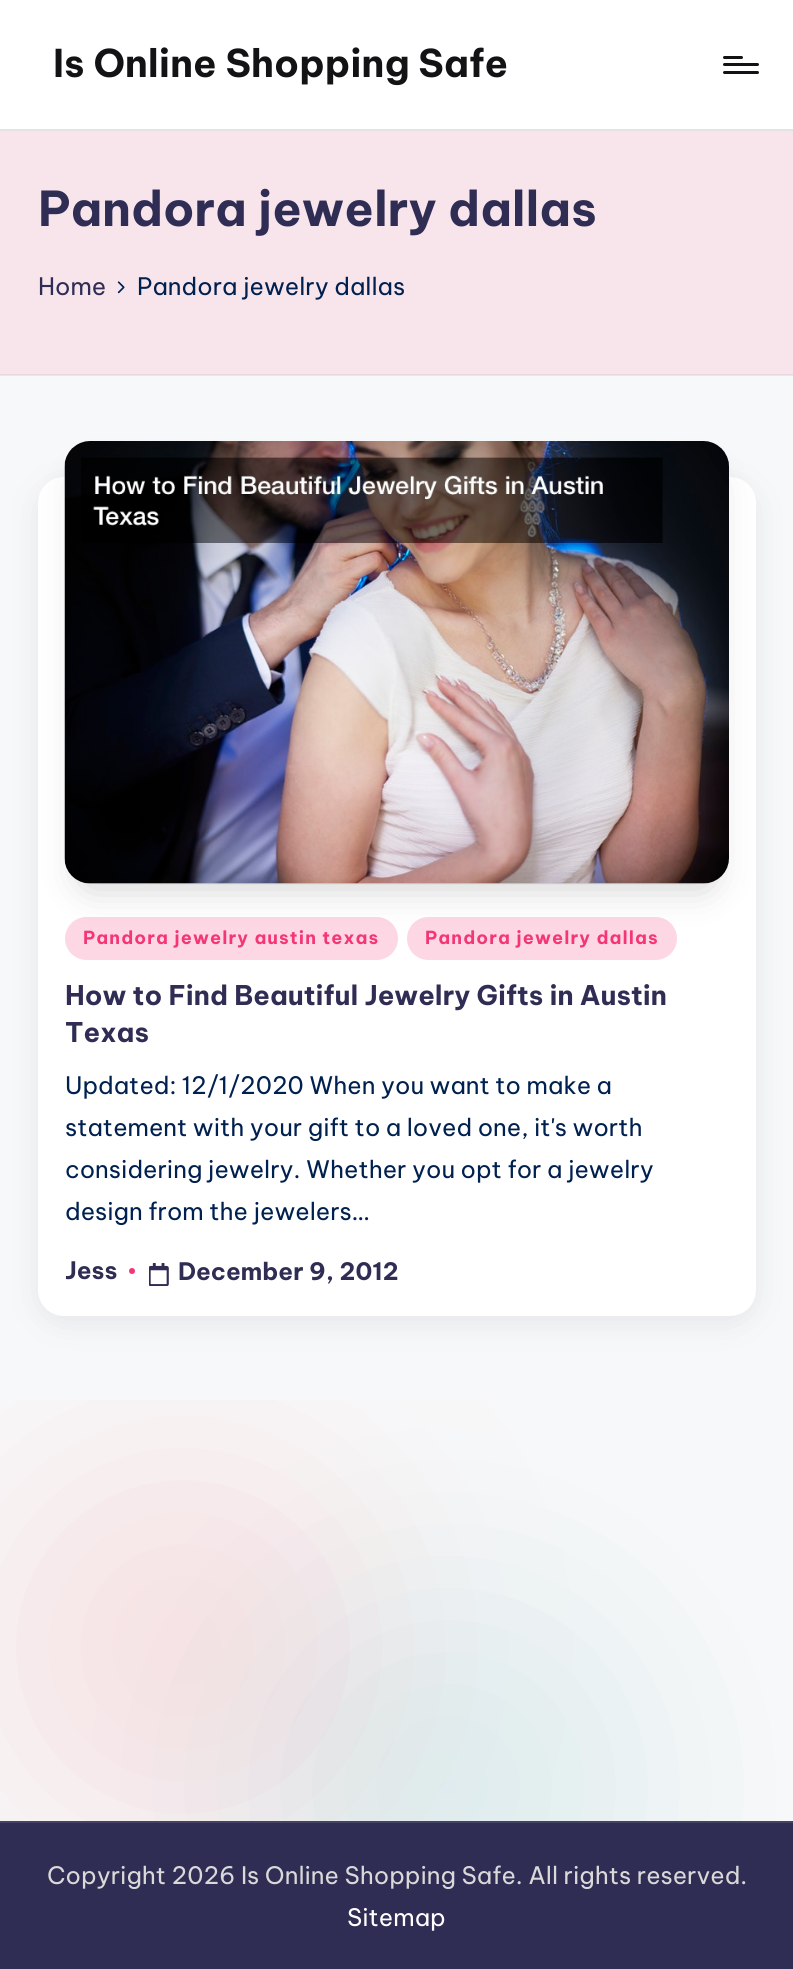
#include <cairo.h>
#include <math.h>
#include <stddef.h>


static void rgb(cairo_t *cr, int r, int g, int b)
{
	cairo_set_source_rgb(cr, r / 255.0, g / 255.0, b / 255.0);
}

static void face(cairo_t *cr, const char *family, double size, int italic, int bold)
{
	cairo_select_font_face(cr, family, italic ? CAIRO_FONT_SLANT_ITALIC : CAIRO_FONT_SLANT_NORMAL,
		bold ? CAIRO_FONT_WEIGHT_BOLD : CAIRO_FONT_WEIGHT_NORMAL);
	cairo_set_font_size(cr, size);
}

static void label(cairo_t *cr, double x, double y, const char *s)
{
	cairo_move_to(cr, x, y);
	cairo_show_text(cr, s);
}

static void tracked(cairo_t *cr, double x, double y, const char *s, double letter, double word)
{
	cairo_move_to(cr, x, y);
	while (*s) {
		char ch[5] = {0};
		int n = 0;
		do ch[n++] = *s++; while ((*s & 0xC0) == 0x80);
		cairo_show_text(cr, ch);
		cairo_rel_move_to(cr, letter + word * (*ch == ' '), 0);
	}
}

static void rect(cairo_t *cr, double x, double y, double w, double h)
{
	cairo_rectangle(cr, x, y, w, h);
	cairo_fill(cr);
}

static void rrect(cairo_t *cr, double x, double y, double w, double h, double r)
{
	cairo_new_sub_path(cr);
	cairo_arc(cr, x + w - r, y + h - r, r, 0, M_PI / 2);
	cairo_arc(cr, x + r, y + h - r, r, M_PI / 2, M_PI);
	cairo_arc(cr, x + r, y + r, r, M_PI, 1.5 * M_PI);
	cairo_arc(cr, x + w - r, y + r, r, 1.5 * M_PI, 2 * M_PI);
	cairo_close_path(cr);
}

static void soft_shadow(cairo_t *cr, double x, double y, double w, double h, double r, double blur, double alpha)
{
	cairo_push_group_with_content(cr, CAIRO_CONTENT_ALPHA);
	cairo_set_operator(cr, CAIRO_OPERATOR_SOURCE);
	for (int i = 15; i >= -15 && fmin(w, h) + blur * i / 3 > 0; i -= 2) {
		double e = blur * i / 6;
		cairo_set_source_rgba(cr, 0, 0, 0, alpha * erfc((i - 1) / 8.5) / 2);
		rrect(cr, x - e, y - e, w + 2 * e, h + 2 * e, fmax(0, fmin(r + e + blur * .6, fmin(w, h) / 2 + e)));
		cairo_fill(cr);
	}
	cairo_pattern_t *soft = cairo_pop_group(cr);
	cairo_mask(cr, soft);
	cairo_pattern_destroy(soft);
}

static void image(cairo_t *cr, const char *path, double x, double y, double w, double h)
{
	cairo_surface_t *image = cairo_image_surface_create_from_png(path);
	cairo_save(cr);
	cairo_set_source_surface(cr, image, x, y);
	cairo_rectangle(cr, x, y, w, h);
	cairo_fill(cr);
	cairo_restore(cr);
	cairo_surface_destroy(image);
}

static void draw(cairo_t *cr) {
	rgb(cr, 247, 248, 249);
	cairo_paint(cr);
	rgb(cr, 232, 233, 234);
	rect(cr, 0, 375, 793, 1);
	rgb(cr, 255, 255, 255);
	rect(cr, 0, 0, 793, 129);
	rgb(cr, 227, 227, 227);
	rect(cr, 0, 129, 793, 2);
	face(cr, "Be Vietnam Pro", 38.2, 0, 1);
	rgb(cr, 19, 19, 21);
	label(cr, 53, 77, "Is Online Shopping Safe");
	rrect(cr, 723, 63, 36, 3, 1.5);
	cairo_fill(cr);
	rrect(cr, 723, 56, 20, 3, 1.5);
	cairo_fill(cr);
	rrect(cr, 723, 71, 36, 3, 1.5);
	cairo_fill(cr);
	rgb(cr, 247, 229, 235);
	rect(cr, 0, 131, 793, 243);
	rgb(cr, 232, 215, 221);
	rect(cr, 0, 374, 793, 1);
	face(cr, "Be Vietnam Pro", 48, 0, 1);
	rgb(cr, 48, 45, 85);
	label(cr, 38, 226, "Pandora jewelry dallas");
	face(cr, "Be Vietnam Pro", 24, 0, 0);
	label(cr, 38, 295, "Home");
	image(cr, "image0.png", 117, 281, 8, 13);
	rgb(cr, 0, 32, 80);
	label(cr, 137, 295, "Pandora jewelry dallas");
	rgb(cr, 69, 67, 96);
	soft_shadow(cr, 38, 485, 718, 838, 26, 15, 0.1);
	cairo_save(cr);
	cairo_rectangle(cr, 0, 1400, 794, 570);
	cairo_clip(cr);
	rgb(cr, 247, 227, 229);
	soft_shadow(cr, 0, 1464, 366, 366, 183, 96, 1);
	cairo_restore(cr);
	rgb(cr, 4, 134, 139);
	soft_shadow(cr, 264, 1604, 368, 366, 183, 96, 0.1);
	rgb(cr, 255, 255, 255);
	rrect(cr, 38, 477, 718, 839, 26);
	cairo_fill(cr);
	rgb(cr, 253, 215, 228);
	rrect(cr, 65, 917, 333, 43, 21.5);
	cairo_fill(cr);
	rrect(cr, 407, 917, 270, 43, 21.5);
	cairo_fill(cr);
	rgb(cr, 0, 0, 0);
	soft_shadow(cr, 80, 477, 634, 411, 11, 18, 0.18);
	rgb(cr, 209, 209, 209);
	rrect(cr, 65, 441, 664, 443, 26);
	cairo_fill(cr);
	image(cr, "image1.png", 64, 441, 665, 443);
	face(cr, "Be Vietnam Pro", 18, 0, 1);
	rgb(cr, 244, 54, 118);
	tracked(cr, 83, 944, "Pandora jewelry austin texas", 1.1, 0);
	tracked(cr, 425, 944, "Pandora jewelry dallas", 1.1, 0);
	face(cr, "Be Vietnam Pro", 27, 0, 1);
	rgb(cr, 48, 45, 85);
	label(cr, 65, 1005, "How to Find Beautiful Jewelry Gifts in Austin");
	label(cr, 65, 1042, "Texas");
	face(cr, "Be Vietnam Pro", 24, 0, 0);
	rgb(cr, 0, 32, 80);
	label(cr, 65, 1094, "Updated: 12/1/2020 When you want to make a");
	label(cr, 65, 1136, "statement with your gift to a loved one, it's worth");
	label(cr, 65, 1178, "considering jewelry. Whether you opt for a jewelry");
	label(cr, 65, 1220, "design from the jewelers…");
	face(cr, "Be Vietnam Pro", 24, 0, 1);
	rgb(cr, 48, 45, 85);
	label(cr, 65, 1279, "Jess");
	rgb(cr, 244, 54, 118);
	cairo_new_path(cr);
	cairo_arc(cr, 132, 1271, 3, 0, 2 * M_PI);
	cairo_fill(cr);
	image(cr, "image2.png", 149, 1263, 20, 23);
	rgb(cr, 48, 45, 85);
	label(cr, 178, 1280, "December 9, 2012");
	rect(cr, 0, 1823, 793, 146);
	rgb(cr, 69, 66, 102);
	rect(cr, 0, 1821, 793, 2);
	face(cr, "Be Vietnam Pro", 24, 0, 0);
	rgb(cr, 217, 217, 217);
	label(cr, 47, 1884, "Copyright 2026 Is Online Shopping Safe. All rights reserved.");
	rgb(cr, 255, 255, 255);
	label(cr, 347, 1926, "Sitemap");
}

int main(void) {
	cairo_surface_t *surface = cairo_image_surface_create(CAIRO_FORMAT_RGB24, 793, 1969);
	cairo_t *cr = cairo_create(surface);
	cairo_font_options_t *options = cairo_font_options_create();
	cairo_font_options_set_hint_metrics(options, CAIRO_HINT_METRICS_OFF);
	cairo_font_options_set_hint_style(options, CAIRO_HINT_STYLE_NONE);
	cairo_set_font_options(cr, options);
	cairo_set_miter_limit(cr, 4);
	draw(cr);
	cairo_surface_write_to_png(surface, "render.png");
	cairo_font_options_destroy(options);
	cairo_destroy(cr);
	cairo_surface_destroy(surface);
	return 0;
}
